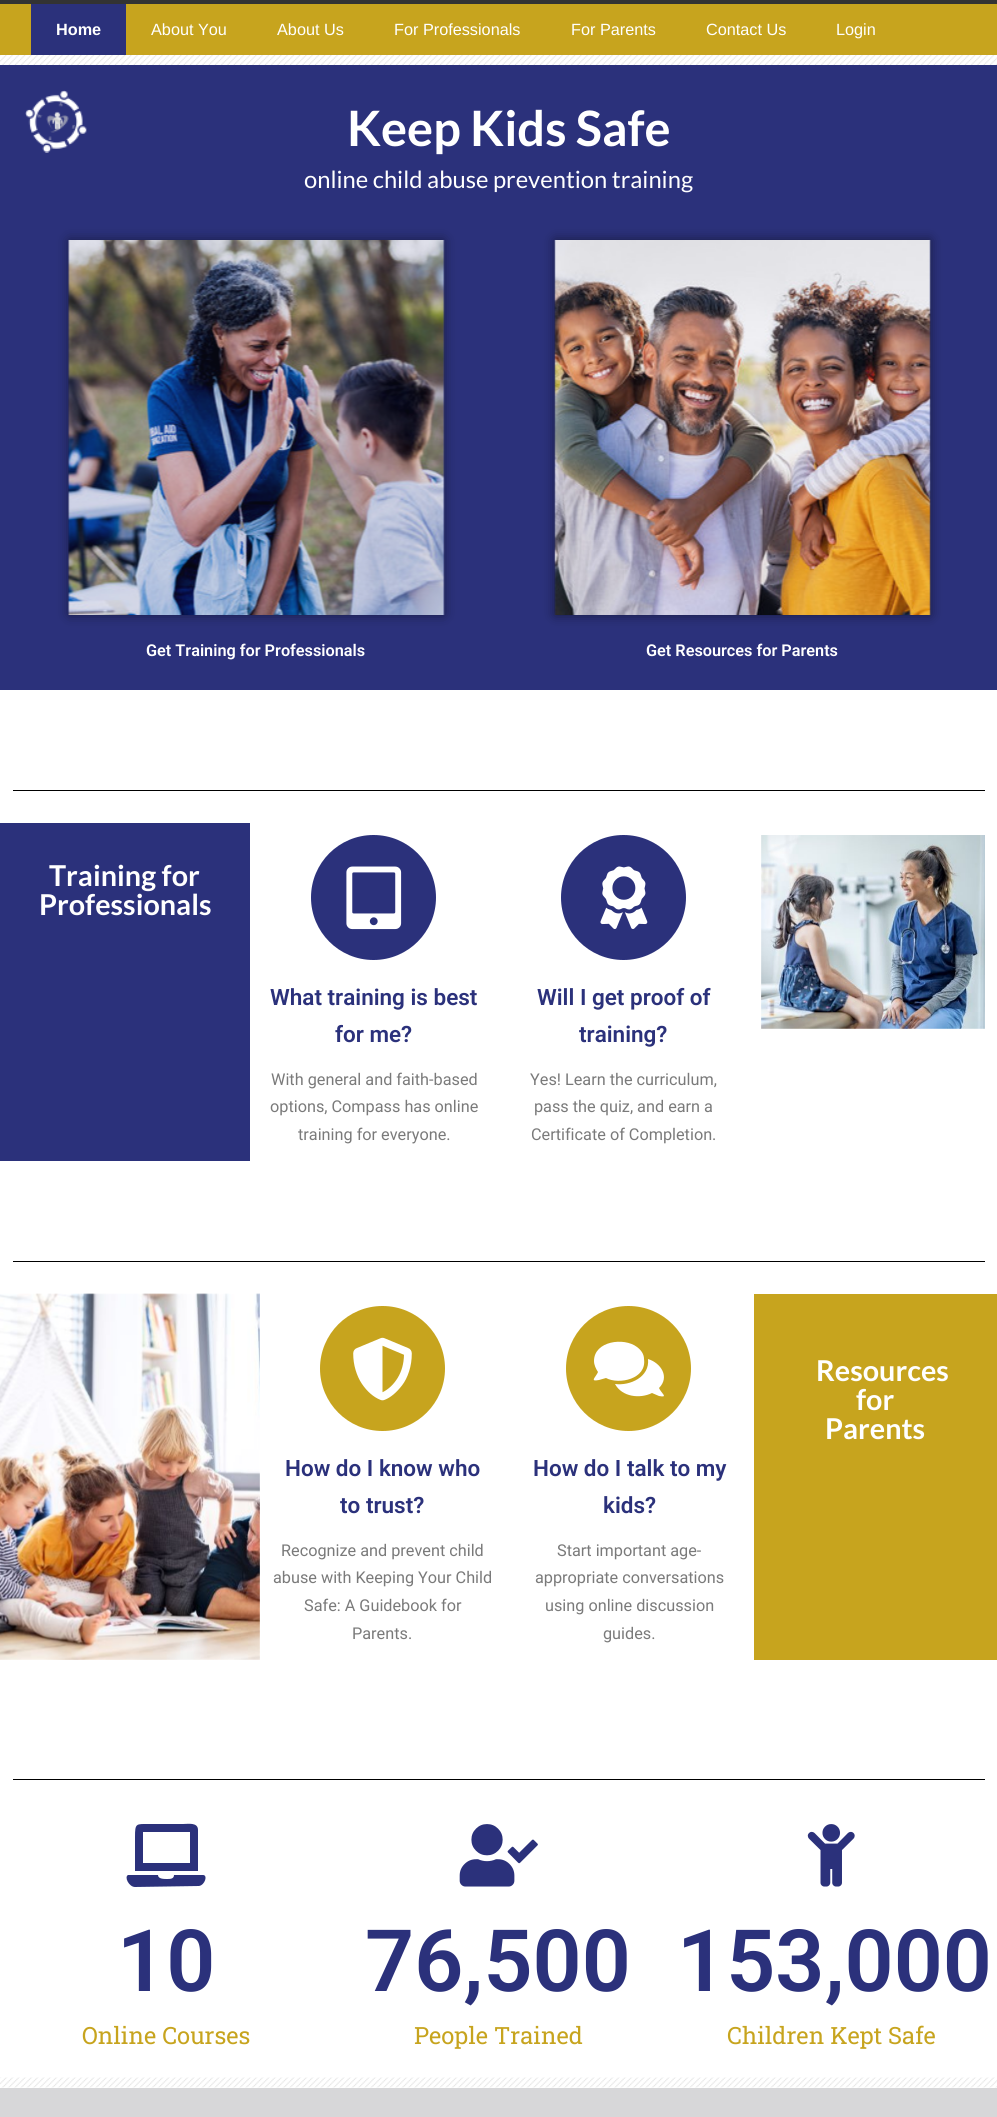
#include <cairo.h>
#include <math.h>
#include <stddef.h>


static void rgb(cairo_t *cr, int r, int g, int b)
{
	cairo_set_source_rgb(cr, r / 255.0, g / 255.0, b / 255.0);
}

static void face(cairo_t *cr, const char *family, double size, int italic, int bold)
{
	cairo_select_font_face(cr, family, italic ? CAIRO_FONT_SLANT_ITALIC : CAIRO_FONT_SLANT_NORMAL,
		bold ? CAIRO_FONT_WEIGHT_BOLD : CAIRO_FONT_WEIGHT_NORMAL);
	cairo_set_font_size(cr, size);
}

static void label(cairo_t *cr, double x, double y, const char *s)
{
	cairo_move_to(cr, x, y);
	cairo_show_text(cr, s);
}

static void rect(cairo_t *cr, double x, double y, double w, double h)
{
	cairo_rectangle(cr, x, y, w, h);
	cairo_fill(cr);
}

static void rrect(cairo_t *cr, double x, double y, double w, double h, double r)
{
	cairo_new_sub_path(cr);
	cairo_arc(cr, x + w - r, y + h - r, r, 0, M_PI / 2);
	cairo_arc(cr, x + r, y + h - r, r, M_PI / 2, M_PI);
	cairo_arc(cr, x + r, y + r, r, M_PI, 1.5 * M_PI);
	cairo_arc(cr, x + w - r, y + r, r, 1.5 * M_PI, 2 * M_PI);
	cairo_close_path(cr);
}

static void soft_shadow(cairo_t *cr, double x, double y, double w, double h, double r, double blur, double alpha)
{
	cairo_push_group_with_content(cr, CAIRO_CONTENT_ALPHA);
	cairo_set_operator(cr, CAIRO_OPERATOR_SOURCE);
	for (int i = 15; i >= -15 && fmin(w, h) + blur * i / 3 > 0; i -= 2) {
		double e = blur * i / 6;
		cairo_set_source_rgba(cr, 0, 0, 0, alpha * erfc((i - 1) / 8.5) / 2);
		rrect(cr, x - e, y - e, w + 2 * e, h + 2 * e, fmax(0, fmin(r + e + blur * .6, fmin(w, h) / 2 + e)));
		cairo_fill(cr);
	}
	cairo_pattern_t *soft = cairo_pop_group(cr);
	cairo_mask(cr, soft);
	cairo_pattern_destroy(soft);
}

static void image(cairo_t *cr, const char *path, double x, double y, double w, double h)
{
	cairo_surface_t *image = cairo_image_surface_create_from_png(path);
	cairo_save(cr);
	cairo_set_source_surface(cr, image, x, y);
	cairo_rectangle(cr, x, y, w, h);
	cairo_fill(cr);
	cairo_restore(cr);
	cairo_surface_destroy(image);
}

static void draw(cairo_t *cr) {
	rgb(cr, 255, 255, 255);
	cairo_paint(cr);
	rgb(cr, 51, 51, 51);
	rect(cr, 0, 0, 997, 4);
	rgb(cr, 199, 164, 30);
	rect(cr, 0, 4, 997, 51);
	rgb(cr, 43, 49, 123);
	rect(cr, 31, 4, 95, 51);
	face(cr, "Liberation Sans", 16.25, 0, 1);
	rgb(cr, 255, 255, 255);
	label(cr, 56, 35, "Home");
	face(cr, "Liberation Sans", 16.25, 0, 0);
	label(cr, 151, 35, "About You");
	label(cr, 277, 35, "About Us");
	label(cr, 394, 35, "For Professionals");
	label(cr, 571, 35, "For Parents");
	label(cr, 706, 35, "Contact Us");
	label(cr, 836, 35, "Login");
	image(cr, "image0.png", 0, 55, 997, 10);
	rgb(cr, 43, 49, 123);
	rect(cr, 0, 65, 997, 625);
	image(cr, "image1.png", 25, 90, 62, 63);
	face(cr, "Lato", 48.75, 0, 1);
	rgb(cr, 255, 255, 255);
	label(cr, 347, 146, "Keep Kids Safe");
	face(cr, "Lato", 23.75, 0, 0);
	label(cr, 304, 188, "online child abuse prevention training");
	cairo_save(cr);
	cairo_set_fill_rule(cr, CAIRO_FILL_RULE_EVEN_ODD);
	cairo_new_path(cr);
	cairo_move_to(cr, 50, 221);
	cairo_line_to(cr, 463, 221);
	cairo_line_to(cr, 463, 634);
	cairo_line_to(cr, 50, 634);
	cairo_close_path(cr);
	cairo_move_to(cr, 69, 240);
	cairo_line_to(cr, 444, 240);
	cairo_line_to(cr, 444, 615);
	cairo_line_to(cr, 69, 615);
	cairo_close_path(cr);
	cairo_clip(cr);
	rgb(cr, 6, 7, 17);
	soft_shadow(cr, 69, 240, 375, 375, 0, 6, 0.5);
	cairo_restore(cr);
	image(cr, "image2.png", 68, 240, 377, 375);
	face(cr, "Roboto SemiBold", 16.25, 0, 0);
	label(cr, 146, 656, "Get Training for Professionals");
	cairo_save(cr);
	cairo_set_fill_rule(cr, CAIRO_FILL_RULE_EVEN_ODD);
	cairo_new_path(cr);
	cairo_move_to(cr, 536, 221);
	cairo_line_to(cr, 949, 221);
	cairo_line_to(cr, 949, 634);
	cairo_line_to(cr, 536, 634);
	cairo_close_path(cr);
	cairo_move_to(cr, 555, 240);
	cairo_line_to(cr, 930, 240);
	cairo_line_to(cr, 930, 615);
	cairo_line_to(cr, 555, 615);
	cairo_close_path(cr);
	cairo_clip(cr);
	rgb(cr, 3, 3, 7);
	soft_shadow(cr, 555, 240, 375, 375, 0, 6, 0.5);
	cairo_restore(cr);
	image(cr, "image3.png", 554, 240, 377, 375);
	label(cr, 646, 656, "Get Resources for Parents");
	rgb(cr, 0, 0, 0);
	rect(cr, 13, 790, 972, 1);
	rgb(cr, 43, 49, 123);
	rect(cr, 0, 823, 250, 338);
	face(cr, "Lato", 28.75, 0, 1);
	rgb(cr, 255, 255, 255);
	label(cr, 49, 886, "Training for");
	label(cr, 39, 915, "Professionals");
	image(cr, "image4.png", 761, 835, 224, 194);
	rgb(cr, 43, 49, 123);
	cairo_arc(cr, 373.5, 897.5, 62.5, 0, 2 * M_PI);
	cairo_fill(cr);
	image(cr, "image5.png", 346, 866, 56, 64);
	face(cr, "Roboto SemiBold", 22.5, 0, 0);
	label(cr, 270, 1005, "What training is best");
	label(cr, 335, 1042, "for me?");
	face(cr, "Roboto", 16.25, 0, 0);
	rgb(cr, 122, 122, 122);
	label(cr, 271, 1085, "With general and faith-based");
	label(cr, 270, 1112, "options, Compass has online");
	label(cr, 298, 1140, "training for everyone.");
	rgb(cr, 43, 49, 123);
	cairo_new_path(cr);
	cairo_arc(cr, 623.5, 897.5, 62.5, 0, 2 * M_PI);
	cairo_fill(cr);
	image(cr, "image6.png", 600, 866, 48, 63);
	face(cr, "Roboto SemiBold", 22.5, 0, 0);
	label(cr, 537, 1005, "Will I get proof of");
	label(cr, 579, 1042, "training?");
	face(cr, "Roboto", 16.25, 0, 0);
	rgb(cr, 122, 122, 122);
	label(cr, 530, 1085, "Yes! Learn the curriculum,");
	label(cr, 534, 1112, "pass the quiz, and earn a");
	label(cr, 531, 1140, "Certificate of Completion.");
	rgb(cr, 0, 0, 0);
	rect(cr, 13, 1261, 972, 1);
	image(cr, "image7.png", 0, 1293, 260, 367);
	rgb(cr, 199, 164, 30);
	rect(cr, 754, 1294, 243, 366);
	face(cr, "Lato", 28.75, 0, 1);
	rgb(cr, 255, 255, 255);
	label(cr, 816, 1381, "Resources");
	label(cr, 856, 1410, "for");
	label(cr, 825, 1439, "Parents");
	rgb(cr, 199, 164, 30);
	cairo_new_path(cr);
	cairo_arc(cr, 382.5, 1368.5, 62.5, 0, 2 * M_PI);
	cairo_fill(cr);
	image(cr, "image8.png", 353, 1337, 59, 64);
	face(cr, "Roboto SemiBold", 22.5, 0, 0);
	rgb(cr, 43, 49, 123);
	label(cr, 285, 1476, "How do I know who");
	label(cr, 340, 1513, "to trust?");
	face(cr, "Roboto", 16.25, 0, 0);
	rgb(cr, 122, 122, 122);
	label(cr, 281, 1556, "Recognize and prevent child");
	label(cr, 273, 1583, "abuse with Keeping Your Child");
	label(cr, 304, 1611, "Safe: A Guidebook for");
	label(cr, 352, 1639, "Parents.");
	rgb(cr, 199, 164, 30);
	cairo_new_path(cr);
	cairo_arc(cr, 628.5, 1368.5, 62.5, 0, 2 * M_PI);
	cairo_fill(cr);
	rgb(cr, 255, 255, 255);
	cairo_new_path(cr);
	cairo_move_to(cr, 637, 1347);
	cairo_curve_to(cr, 641, 1350, 644, 1354, 644, 1359);
	cairo_curve_to(cr, 647, 1379, 619, 1385, 606, 1378);
	cairo_line_to(cr, 599, 1380);
	cairo_curve_to(cr, 589, 1382, 596, 1377, 598, 1372);
	cairo_curve_to(cr, 596, 1369, 594, 1365, 594, 1361);
	cairo_curve_to(cr, 594, 1341, 624, 1337, 637, 1347);
	cairo_close_path(cr);
	cairo_move_to(cr, 659, 1388);
	cairo_curve_to(cr, 661, 1393, 669, 1398, 659, 1396);
	cairo_line_to(cr, 652, 1393);
	cairo_curve_to(cr, 640, 1399, 622, 1397, 615, 1384);
	cairo_curve_to(cr, 630, 1386, 650, 1377, 648, 1359);
	cairo_curve_to(cr, 661, 1363, 670, 1377, 659, 1388);
	cairo_close_path(cr);
	cairo_fill(cr);
	face(cr, "Roboto SemiBold", 22.5, 0, 0);
	rgb(cr, 43, 49, 123);
	label(cr, 533, 1476, "How do I talk to my");
	label(cr, 603, 1513, "kids?");
	face(cr, "Roboto", 16.25, 0, 0);
	rgb(cr, 122, 122, 122);
	label(cr, 557, 1556, "Start important age-");
	label(cr, 535, 1583, "appropriate conversations");
	label(cr, 545, 1611, "using online discussion");
	label(cr, 603, 1639, "guides.");
	rgb(cr, 0, 0, 0);
	rect(cr, 13, 1779, 972, 1);
	rgb(cr, 43, 49, 123);
	cairo_new_path(cr);
	cairo_move_to(cr, 203, 1875);
	cairo_curve_to(cr, 208, 1875, 205, 1885, 199, 1886);
	cairo_line_to(cr, 135, 1887);
	cairo_curve_to(cr, 129, 1887, 124, 1877, 128, 1875);
	cairo_line_to(cr, 158, 1875);
	cairo_curve_to(cr, 158, 1879, 164, 1879, 167, 1879);
	cairo_curve_to(cr, 170, 1879, 174, 1879, 174, 1875);
	cairo_close_path(cr);
	cairo_move_to(cr, 198, 1830);
	cairo_line_to(cr, 198, 1871);
	cairo_line_to(cr, 135, 1871);
	cairo_line_to(cr, 135, 1837);
	cairo_curve_to(cr, 135, 1823, 136, 1824, 149, 1824);
	cairo_line_to(cr, 183, 1824);
	cairo_curve_to(cr, 188, 1824, 198, 1822, 198, 1830);
	cairo_close_path(cr);
	cairo_move_to(cr, 190, 1863);
	cairo_line_to(cr, 190, 1832);
	cairo_line_to(cr, 143, 1832);
	cairo_line_to(cr, 143, 1863);
	cairo_close_path(cr);
	cairo_fill(cr);
	face(cr, "Roboto SemiBold", 86, 0, 0);
	label(cr, 117, 1991, "10");
	face(cr, "Roboto Slab", 23.75, 0, 0);
	rgb(cr, 199, 164, 30);
	label(cr, 82, 2044, "Online Courses");
	image(cr, "image9.png", 459, 1824, 79, 63);
	face(cr, "Roboto SemiBold", 86, 0, 0);
	rgb(cr, 43, 49, 123);
	label(cr, 365, 1991, "76,500");
	face(cr, "Roboto Slab", 23.75, 0, 0);
	rgb(cr, 199, 164, 30);
	label(cr, 414, 2044, "People Trained");
	image(cr, "image10.png", 807, 1824, 48, 63);
	face(cr, "Roboto SemiBold", 86, 0, 0);
	rgb(cr, 43, 49, 123);
	label(cr, 677, 1991, "153,000");
	face(cr, "Roboto Slab", 23.75, 0, 0);
	rgb(cr, 199, 164, 30);
	label(cr, 727, 2044, "Children Kept Safe");
	image(cr, "image11.png", 0, 2077, 997, 11);
	rgb(cr, 215, 215, 217);
	rect(cr, 0, 2088, 997, 29);
}

int main(void) {
	cairo_surface_t *surface = cairo_image_surface_create(CAIRO_FORMAT_RGB24, 997, 2117);
	cairo_t *cr = cairo_create(surface);
	cairo_font_options_t *options = cairo_font_options_create();
	cairo_font_options_set_hint_metrics(options, CAIRO_HINT_METRICS_OFF);
	cairo_font_options_set_hint_style(options, CAIRO_HINT_STYLE_NONE);
	cairo_set_font_options(cr, options);
	cairo_set_miter_limit(cr, 4);
	draw(cr);
	cairo_surface_write_to_png(surface, "render.png");
	cairo_font_options_destroy(options);
	cairo_destroy(cr);
	cairo_surface_destroy(surface);
	return 0;
}
